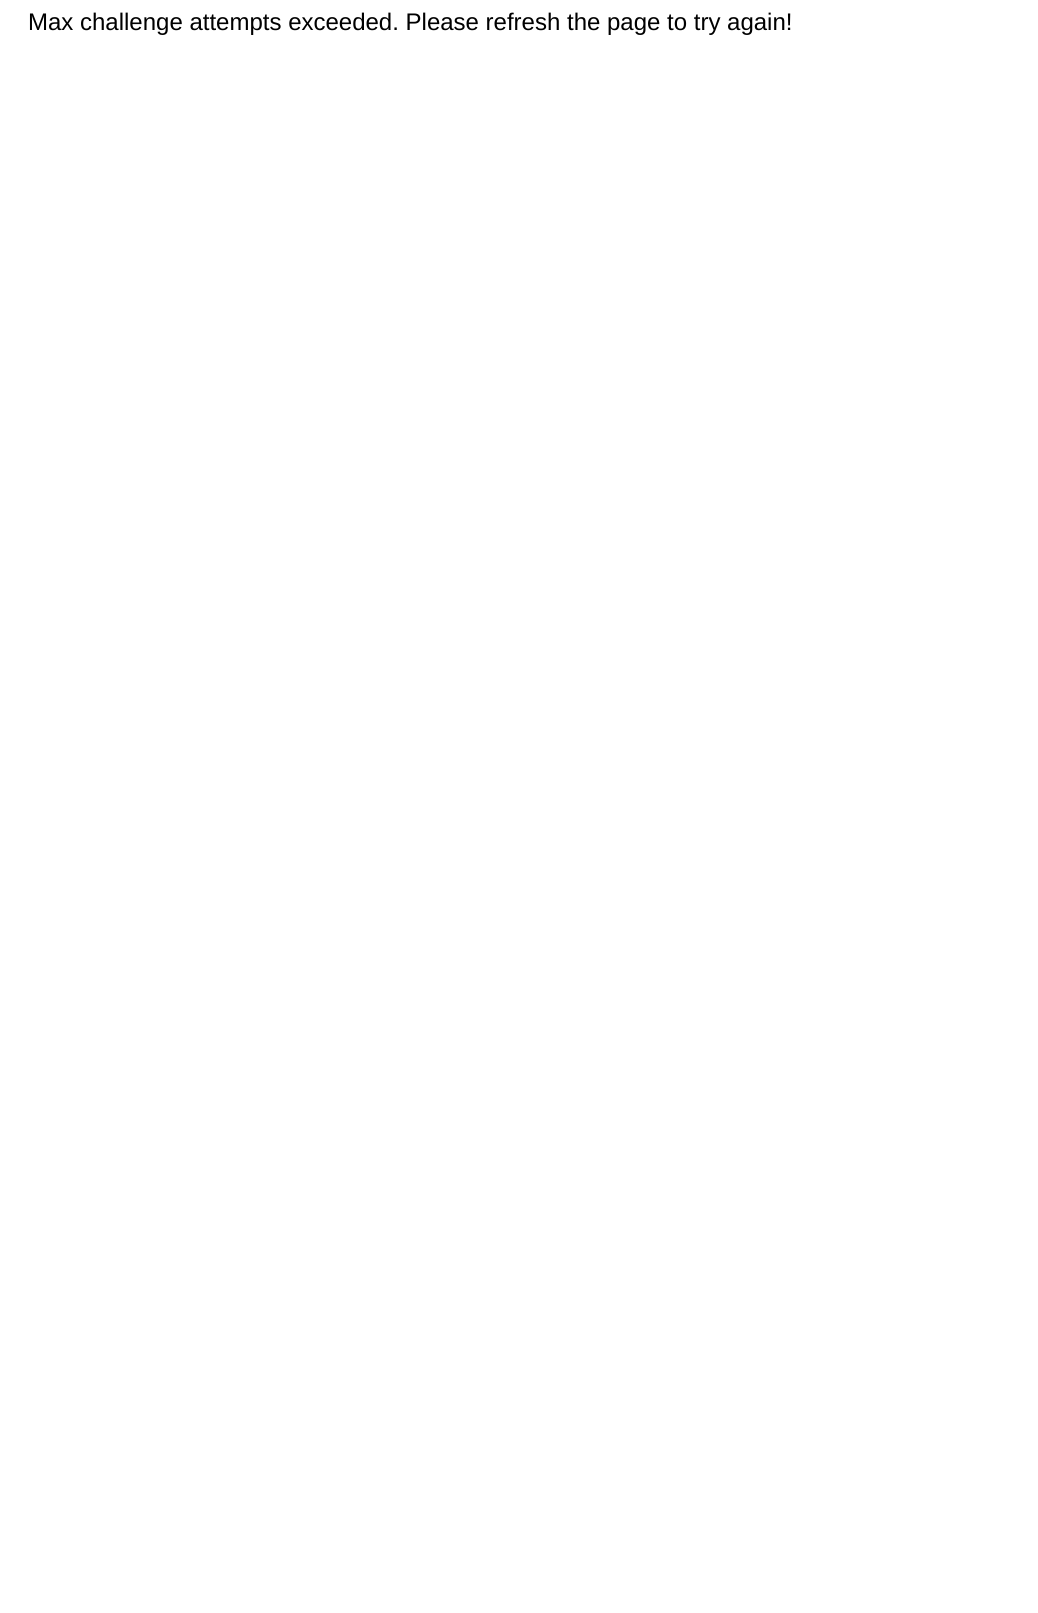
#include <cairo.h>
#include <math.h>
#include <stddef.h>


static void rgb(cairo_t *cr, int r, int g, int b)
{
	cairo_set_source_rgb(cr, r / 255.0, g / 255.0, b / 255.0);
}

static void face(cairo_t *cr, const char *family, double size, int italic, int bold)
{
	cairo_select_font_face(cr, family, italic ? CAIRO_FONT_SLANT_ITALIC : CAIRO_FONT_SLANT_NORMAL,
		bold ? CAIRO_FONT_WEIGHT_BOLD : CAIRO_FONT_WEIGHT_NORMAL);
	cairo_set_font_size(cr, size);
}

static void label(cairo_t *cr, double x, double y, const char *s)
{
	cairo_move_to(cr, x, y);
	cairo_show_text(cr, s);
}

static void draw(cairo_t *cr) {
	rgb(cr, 255, 255, 255);
	cairo_paint(cr);
	face(cr, "Liberation Sans", 24, 0, 0);
	rgb(cr, 0, 0, 0);
	label(cr, 28, 30, "Max challenge attempts exceeded. Please refresh the page to try again!");
}

int main(void) {
	cairo_surface_t *surface = cairo_image_surface_create(CAIRO_FORMAT_RGB24, 1038, 1613);
	cairo_t *cr = cairo_create(surface);
	cairo_font_options_t *options = cairo_font_options_create();
	cairo_font_options_set_hint_metrics(options, CAIRO_HINT_METRICS_OFF);
	cairo_font_options_set_hint_style(options, CAIRO_HINT_STYLE_NONE);
	cairo_set_font_options(cr, options);
	cairo_set_miter_limit(cr, 4);
	draw(cr);
	cairo_surface_write_to_png(surface, "render.png");
	cairo_font_options_destroy(options);
	cairo_destroy(cr);
	cairo_surface_destroy(surface);
	return 0;
}
